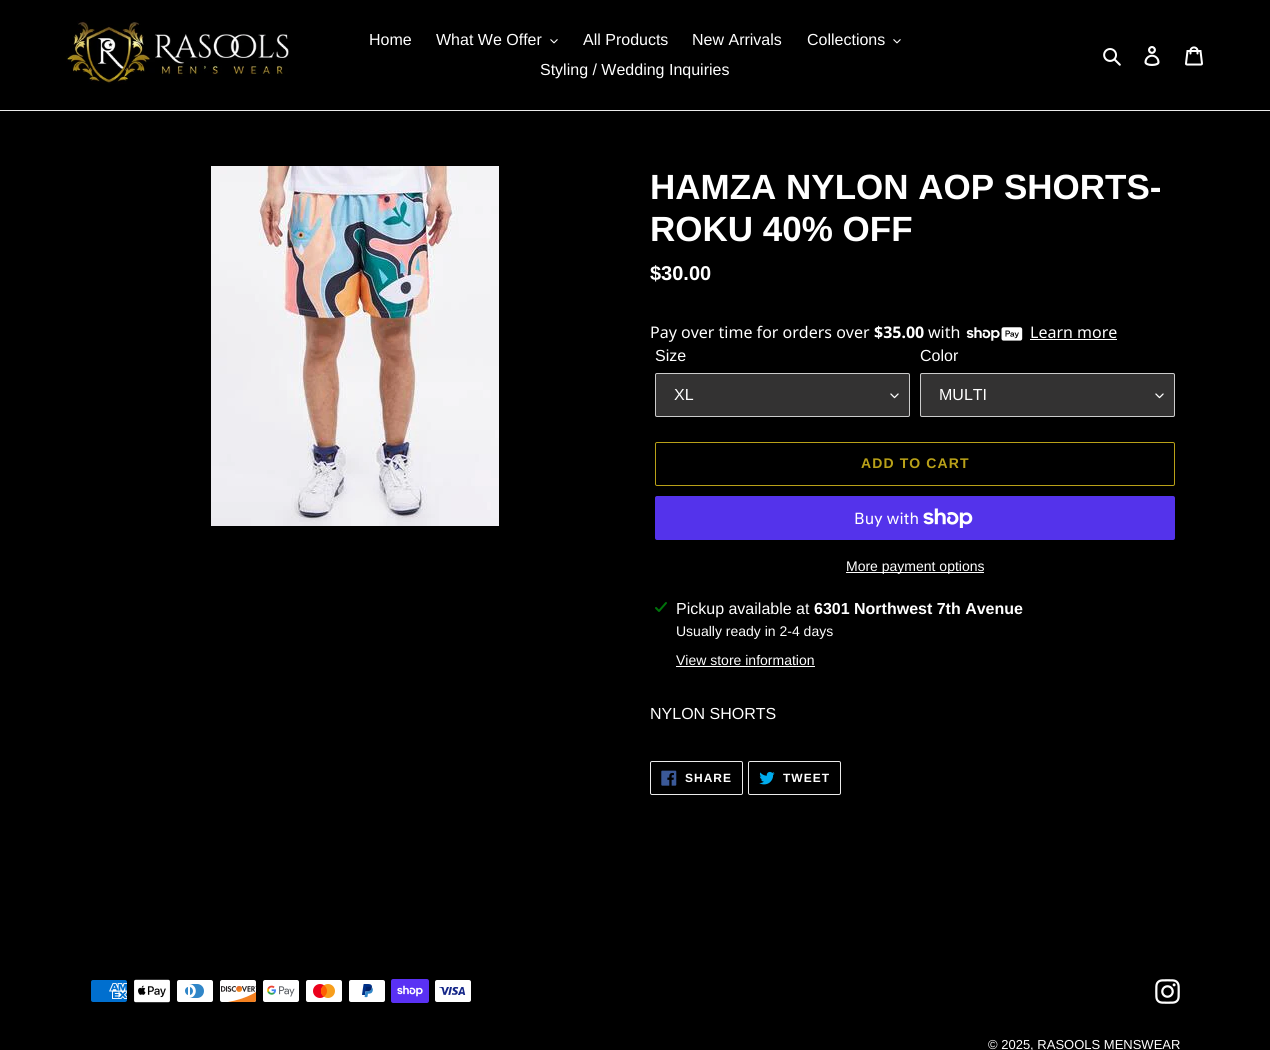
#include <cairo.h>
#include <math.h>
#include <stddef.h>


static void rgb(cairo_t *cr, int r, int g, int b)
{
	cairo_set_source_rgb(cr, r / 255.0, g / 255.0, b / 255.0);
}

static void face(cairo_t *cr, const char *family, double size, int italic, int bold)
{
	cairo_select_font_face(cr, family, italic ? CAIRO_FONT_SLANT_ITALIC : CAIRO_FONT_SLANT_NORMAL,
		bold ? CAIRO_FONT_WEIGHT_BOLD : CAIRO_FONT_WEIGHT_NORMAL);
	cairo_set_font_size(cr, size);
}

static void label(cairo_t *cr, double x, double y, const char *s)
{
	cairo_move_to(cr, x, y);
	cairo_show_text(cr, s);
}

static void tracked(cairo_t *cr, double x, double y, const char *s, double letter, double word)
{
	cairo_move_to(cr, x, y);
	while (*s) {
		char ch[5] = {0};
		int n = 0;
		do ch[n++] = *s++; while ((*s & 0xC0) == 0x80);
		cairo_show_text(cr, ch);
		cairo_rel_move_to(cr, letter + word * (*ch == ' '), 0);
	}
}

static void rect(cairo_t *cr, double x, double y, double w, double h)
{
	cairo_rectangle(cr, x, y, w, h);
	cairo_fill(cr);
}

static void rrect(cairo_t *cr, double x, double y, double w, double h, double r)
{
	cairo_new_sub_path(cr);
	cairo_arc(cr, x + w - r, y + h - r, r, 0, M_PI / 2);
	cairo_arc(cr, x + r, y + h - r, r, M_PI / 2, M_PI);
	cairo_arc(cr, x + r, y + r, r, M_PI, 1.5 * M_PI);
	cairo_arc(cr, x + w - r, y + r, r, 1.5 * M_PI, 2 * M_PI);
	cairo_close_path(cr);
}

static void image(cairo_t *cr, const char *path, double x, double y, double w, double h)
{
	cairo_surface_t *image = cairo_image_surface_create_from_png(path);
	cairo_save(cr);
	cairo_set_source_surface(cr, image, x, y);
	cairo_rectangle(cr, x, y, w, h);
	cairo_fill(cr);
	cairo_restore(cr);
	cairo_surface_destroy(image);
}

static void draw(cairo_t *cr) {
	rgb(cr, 0, 0, 0);
	cairo_paint(cr);
	rgb(cr, 235, 235, 235);
	rect(cr, 0, 110, 1270, 1);
	image(cr, "image0.png", 66, 20, 223, 64);
	face(cr, "Liberation Sans", 16, 0, 0);
	rgb(cr, 255, 255, 255);
	label(cr, 369, 45, "Home");
	label(cr, 436, 45, "What We Offer");
	image(cr, "image1.png", 550, 39, 8, 5);
	label(cr, 583, 45, "All Products");
	label(cr, 692, 45, "New Arrivals");
	label(cr, 807, 45, "Collections");
	image(cr, "image1.png", 893, 39, 8, 5);
	label(cr, 540, 75, "Styling / Wedding Inquiries");
	image(cr, "image2.png", 1103, 48, 18, 18);
	image(cr, "image3.png", 1144, 46, 16, 20);
	image(cr, "image4.png", 1185, 46, 18, 20);
	image(cr, "image5.png", 211, 166, 288, 360);
	face(cr, "Liberation Sans", 35, 0, 1);
	label(cr, 650, 199, "HAMZA NYLON AOP SHORTS-");
	label(cr, 650, 241, "ROKU 40% OFF");
	face(cr, "Liberation Sans", 20, 0, 1);
	label(cr, 650, 280, "$30.00");
	face(cr, "Noto Sans", 16, 0, 0);
	label(cr, 650, 338, "Pay over time for orders over");
	face(cr, "Noto Sans", 16, 0, 1);
	label(cr, 874, 338, "$35.00");
	face(cr, "Noto Sans", 16, 0, 0);
	label(cr, 928, 338, "with");
	image(cr, "image6.png", 966, 327, 57, 14);
	label(cr, 1030, 338, "Learn more");
	rect(cr, 1030, 339, 87, 1);
	face(cr, "Liberation Sans", 16, 0, 0);
	label(cr, 655, 361, "Size");
	rgb(cr, 51, 50, 50);
	rrect(cr, 655, 373, 255, 44, 2);
	cairo_fill(cr);
	image(cr, "image7.png", 890, 393, 9, 6);
	rrect(cr, 655.5, 373.5, 254, 43, 1.5);
	rgb(cr, 204, 204, 204);
	cairo_set_line_width(cr, 1);
	cairo_stroke(cr);
	rgb(cr, 255, 255, 255);
	label(cr, 674, 400, "XL");
	label(cr, 920, 361, "Color");
	rgb(cr, 51, 50, 50);
	rrect(cr, 920, 373, 255, 44, 2);
	cairo_fill(cr);
	image(cr, "image7.png", 1155, 393, 9, 6);
	rrect(cr, 920.5, 373.5, 254, 43, 1.5);
	rgb(cr, 204, 204, 204);
	cairo_stroke(cr);
	rgb(cr, 255, 255, 255);
	label(cr, 939, 400, "MULTI");
	rrect(cr, 655.5, 442.5, 519, 43, 1.5);
	rgb(cr, 185, 161, 24);
	cairo_stroke(cr);
	face(cr, "Liberation Sans", 14, 0, 1);
	tracked(cr, 861, 468, "ADD TO CART", 1.1, 0);
	rgb(cr, 84, 51, 235);
	rrect(cr, 655, 496, 520, 44, 2);
	cairo_fill(cr);
	face(cr, "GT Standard", 16, 0, 0);
	rgb(cr, 255, 255, 255);
	label(cr, 854, 524, "Buy with");
	image(cr, "image8.png", 923, 508, 50, 20);
	rect(cr, 846, 572, 138, 1);
	face(cr, "Liberation Sans", 14, 0, 0);
	label(cr, 846, 571, "More payment options");
	image(cr, "image9.png", 655, 602, 12, 10);
	face(cr, "Liberation Sans", 16, 0, 0);
	label(cr, 676, 614, "Pickup available at");
	face(cr, "Liberation Sans", 16, 0, 1);
	label(cr, 814, 614, "6301 Northwest 7th Avenue");
	face(cr, "Liberation Sans", 14, 0, 0);
	label(cr, 676, 636, "Usually ready in 2-4 days");
	label(cr, 676, 665, "View store information");
	rect(cr, 676, 666, 139, 1);
	face(cr, "Liberation Sans", 16, 0, 0);
	label(cr, 650, 719, "NYLON SHORTS");
	rrect(cr, 650.5, 761.5, 92, 33, 1.5);
	rgb(cr, 235, 235, 235);
	cairo_stroke(cr);
	image(cr, "image10.png", 661, 770, 16, 16);
	face(cr, "Liberation Sans", 12, 0, 1);
	rgb(cr, 255, 255, 255);
	tracked(cr, 685, 782, "SHARE", 1, 0);
	rrect(cr, 748.5, 761.5, 92, 33, 1.5);
	rgb(cr, 235, 235, 235);
	cairo_stroke(cr);
	image(cr, "image11.png", 759, 771, 16, 14);
	rgb(cr, 255, 255, 255);
	tracked(cr, 783, 782, "TWEET", 1, 0);
	image(cr, "image12.png", 91, 980, 36, 22);
	image(cr, "image13.png", 134, 979, 36, 24);
	image(cr, "image14.png", 177, 980, 36, 22);
	image(cr, "image15.png", 220, 980, 37, 22);
	image(cr, "image16.png", 263, 980, 36, 22);
	image(cr, "image17.png", 306, 980, 36, 22);
	image(cr, "image18.png", 349, 980, 36, 22);
	image(cr, "image19.png", 391, 979, 38, 24);
	image(cr, "image20.png", 435, 980, 36, 22);
	image(cr, "image21.png", 1155, 979, 25, 25);
	face(cr, "Liberation Sans", 13, 0, 0);
	label(cr, 988, 1049, "© 2025, RASOOLS MENSWEAR");
}

int main(void) {
	cairo_surface_t *surface = cairo_image_surface_create(CAIRO_FORMAT_RGB24, 1270, 1050);
	cairo_t *cr = cairo_create(surface);
	cairo_font_options_t *options = cairo_font_options_create();
	cairo_font_options_set_hint_metrics(options, CAIRO_HINT_METRICS_OFF);
	cairo_font_options_set_hint_style(options, CAIRO_HINT_STYLE_NONE);
	cairo_set_font_options(cr, options);
	cairo_set_miter_limit(cr, 4);
	draw(cr);
	cairo_surface_write_to_png(surface, "render.png");
	cairo_font_options_destroy(options);
	cairo_destroy(cr);
	cairo_surface_destroy(surface);
	return 0;
}
